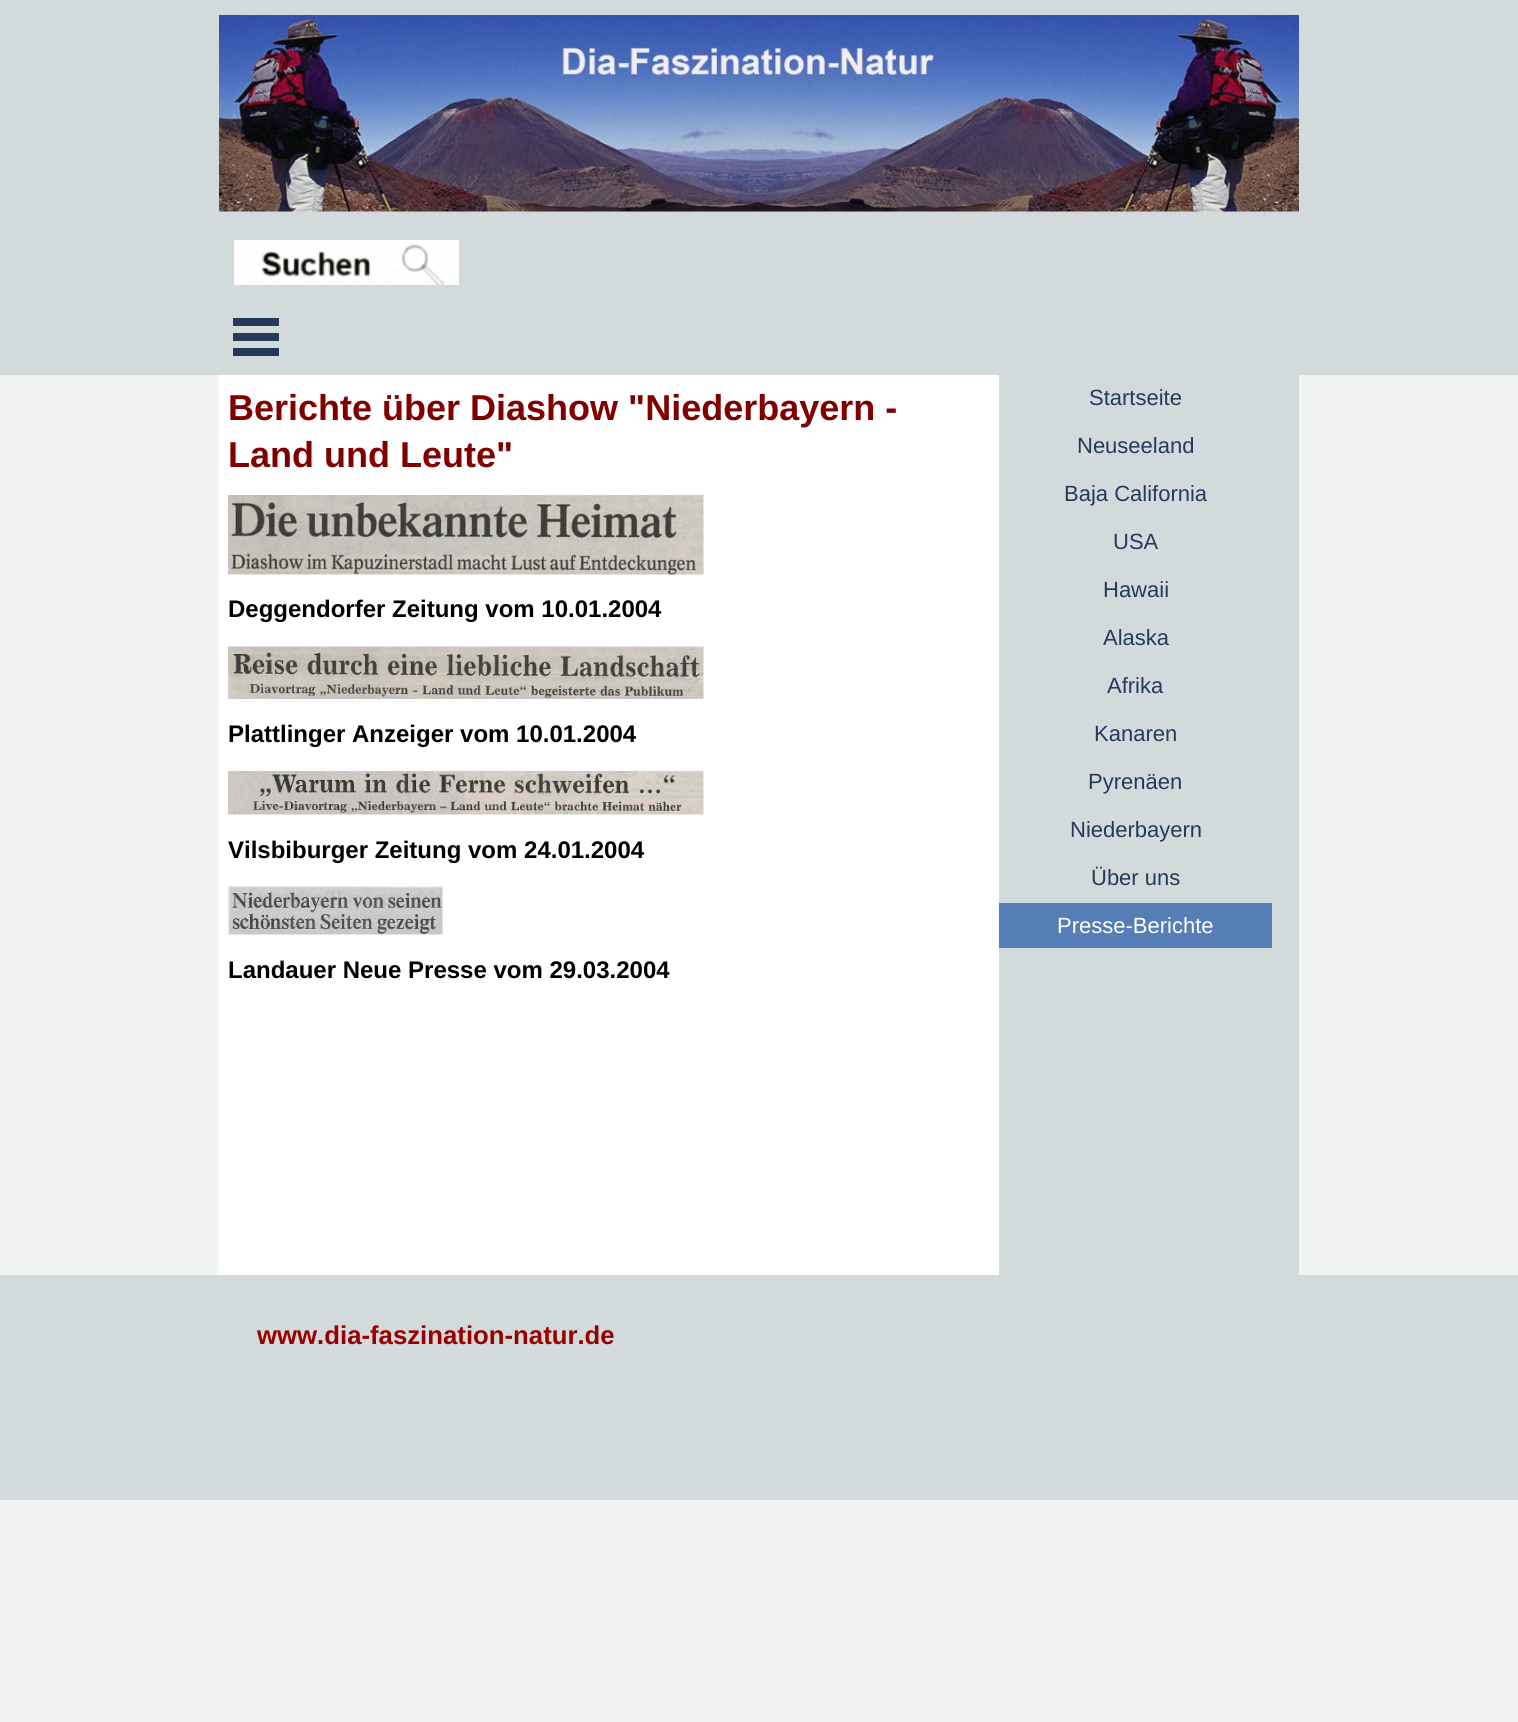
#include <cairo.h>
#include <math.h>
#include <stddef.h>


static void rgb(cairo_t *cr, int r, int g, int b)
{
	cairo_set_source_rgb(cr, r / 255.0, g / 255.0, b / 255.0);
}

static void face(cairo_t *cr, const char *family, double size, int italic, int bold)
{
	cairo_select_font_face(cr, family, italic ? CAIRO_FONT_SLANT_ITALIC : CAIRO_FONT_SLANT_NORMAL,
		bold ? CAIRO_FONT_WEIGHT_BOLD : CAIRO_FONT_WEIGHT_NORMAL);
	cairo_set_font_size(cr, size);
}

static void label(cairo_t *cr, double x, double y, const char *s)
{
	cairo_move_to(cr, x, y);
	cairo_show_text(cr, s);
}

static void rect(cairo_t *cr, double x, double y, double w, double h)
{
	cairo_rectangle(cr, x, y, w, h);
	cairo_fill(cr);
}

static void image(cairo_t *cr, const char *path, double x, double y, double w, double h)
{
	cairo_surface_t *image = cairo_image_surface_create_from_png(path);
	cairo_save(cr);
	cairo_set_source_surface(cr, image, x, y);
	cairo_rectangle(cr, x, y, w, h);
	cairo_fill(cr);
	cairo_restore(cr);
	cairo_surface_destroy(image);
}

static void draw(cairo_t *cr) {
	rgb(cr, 241, 243, 243);
	cairo_paint(cr);
	rgb(cr, 211, 218, 220);
	rect(cr, 0, 0, 1518, 375);
	image(cr, "image0.png", 219, 15, 1080, 197);
	image(cr, "image1.png", 234, 240, 225, 45);
	rgb(cr, 37, 58, 88);
	rect(cr, 233, 318, 46, 8);
	rect(cr, 233, 333, 46, 8);
	rect(cr, 233, 348, 46, 8);
	rgb(cr, 255, 255, 255);
	rect(cr, 219, 375, 780, 900);
	rgb(cr, 211, 218, 220);
	rect(cr, 999, 375, 300, 900);
	face(cr, "Liberation Sans", 22, 0, 0);
	rgb(cr, 37, 58, 88);
	label(cr, 1089, 405, "Startseite");
	label(cr, 1077, 453, "Neuseeland");
	label(cr, 1064, 501, "Baja California");
	label(cr, 1113, 549, "USA");
	label(cr, 1103, 597, "Hawaii");
	label(cr, 1103, 645, "Alaska");
	label(cr, 1107, 693, "Afrika");
	label(cr, 1094, 741, "Kanaren");
	label(cr, 1088, 789, "Pyrenäen");
	label(cr, 1070, 837, "Niederbayern");
	label(cr, 1091, 885, "Über uns");
	rgb(cr, 86, 126, 182);
	rect(cr, 999, 903, 273, 45);
	rgb(cr, 255, 255, 255);
	label(cr, 1057, 933, "Presse-Berichte");
	face(cr, "Liberation Sans", 36, 0, 1);
	rgb(cr, 128, 0, 0);
	label(cr, 228, 420, "Berichte über Diashow \"Niederbayern -");
	label(cr, 228, 467, "Land und Leute\"");
	image(cr, "image2.png", 228, 495, 476, 80);
	face(cr, "Liberation Sans", 24, 0, 1);
	rgb(cr, 0, 0, 0);
	label(cr, 228, 617, "Deggendorfer Zeitung vom 10.01.2004");
	image(cr, "image3.png", 228, 646, 476, 53);
	label(cr, 228, 742, "Plattlinger Anzeiger vom 10.01.2004");
	image(cr, "image4.png", 228, 771, 476, 44);
	label(cr, 228, 858, "Vilsbiburger Zeitung vom 24.01.2004");
	image(cr, "image5.png", 228, 886, 215, 49);
	label(cr, 228, 978, "Landauer Neue Presse vom 29.03.2004");
	rgb(cr, 211, 218, 220);
	rect(cr, 0, 1275, 1518, 225);
	face(cr, "Liberation Sans", 25.75, 0, 1);
	rgb(cr, 152, 0, 0);
	label(cr, 257, 1344, "www.dia-faszination-natur.de");
}

int main(void) {
	cairo_surface_t *surface = cairo_image_surface_create(CAIRO_FORMAT_RGB24, 1518, 1722);
	cairo_t *cr = cairo_create(surface);
	cairo_font_options_t *options = cairo_font_options_create();
	cairo_font_options_set_hint_metrics(options, CAIRO_HINT_METRICS_OFF);
	cairo_font_options_set_hint_style(options, CAIRO_HINT_STYLE_NONE);
	cairo_set_font_options(cr, options);
	cairo_set_miter_limit(cr, 4);
	draw(cr);
	cairo_surface_write_to_png(surface, "render.png");
	cairo_font_options_destroy(options);
	cairo_destroy(cr);
	cairo_surface_destroy(surface);
	return 0;
}
